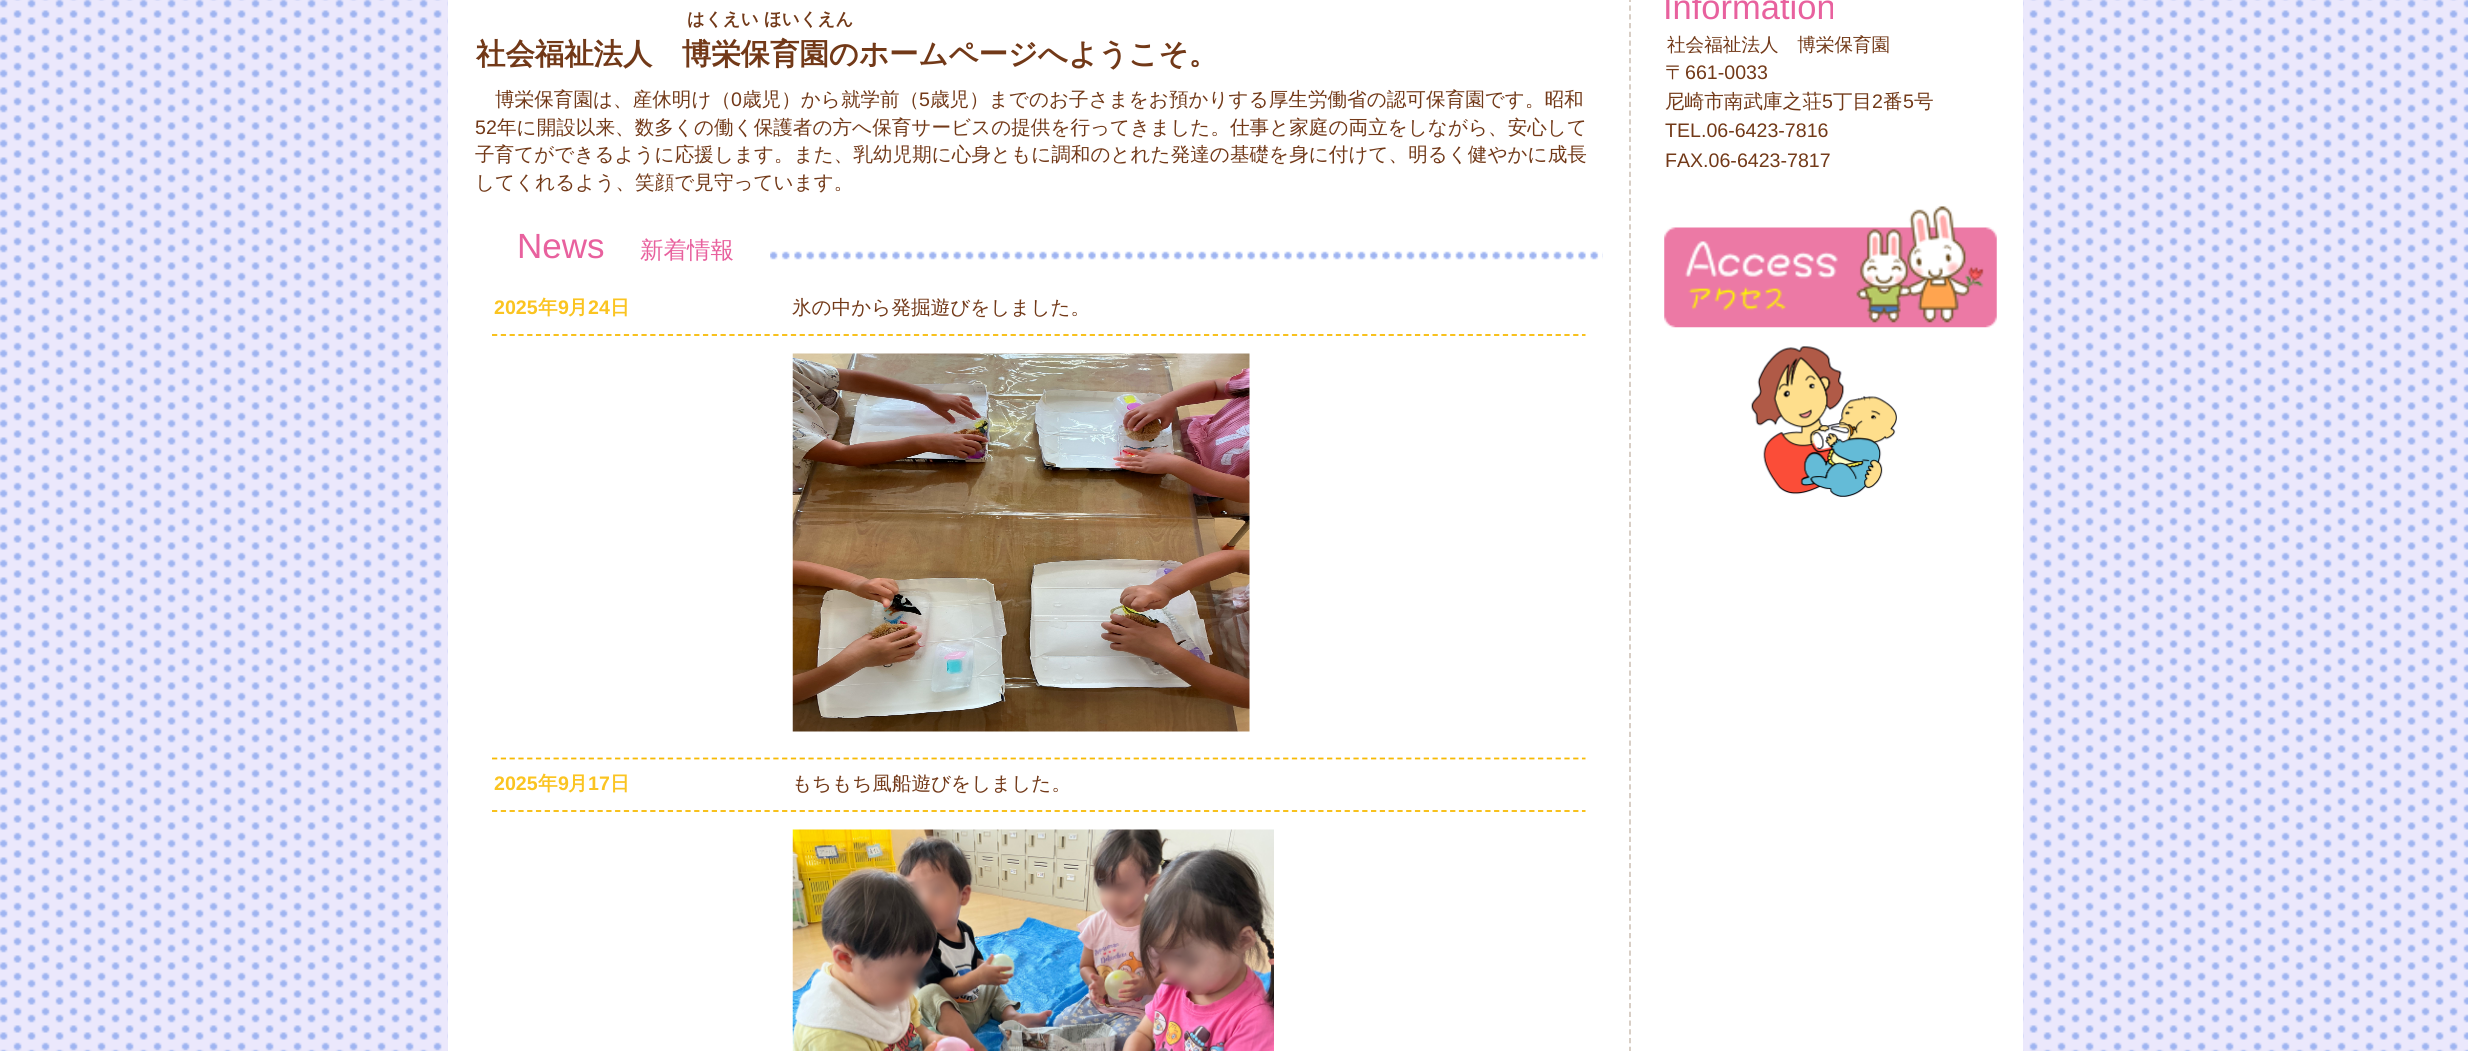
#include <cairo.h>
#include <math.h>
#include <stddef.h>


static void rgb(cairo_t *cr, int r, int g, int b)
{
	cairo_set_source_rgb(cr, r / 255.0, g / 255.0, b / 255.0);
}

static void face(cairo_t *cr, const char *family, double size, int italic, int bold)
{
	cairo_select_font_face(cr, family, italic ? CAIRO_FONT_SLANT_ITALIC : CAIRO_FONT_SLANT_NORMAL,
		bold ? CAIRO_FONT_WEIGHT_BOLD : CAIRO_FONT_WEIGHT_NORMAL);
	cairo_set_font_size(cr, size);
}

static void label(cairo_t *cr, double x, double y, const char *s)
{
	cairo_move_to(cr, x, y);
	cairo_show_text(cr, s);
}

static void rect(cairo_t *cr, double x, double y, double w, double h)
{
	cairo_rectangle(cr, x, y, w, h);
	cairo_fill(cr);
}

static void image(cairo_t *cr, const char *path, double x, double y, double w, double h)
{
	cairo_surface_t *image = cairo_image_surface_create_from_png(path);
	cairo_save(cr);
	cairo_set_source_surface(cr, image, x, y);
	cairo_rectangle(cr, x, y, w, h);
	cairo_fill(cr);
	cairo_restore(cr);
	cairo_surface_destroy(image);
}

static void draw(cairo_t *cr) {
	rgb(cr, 255, 255, 255);
	cairo_paint(cr);
	image(cr, "image0.png", 0, 0, 2468, 1051);
	rgb(cr, 255, 255, 255);
	rect(cr, 448, 0, 1575, 1051);
	cairo_new_path(cr);
	cairo_move_to(cr, 1630, -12);
	cairo_line_to(cr, 1630, 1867);
	rgb(cr, 212, 201, 191);
	cairo_set_line_width(cr, 1.8);
	cairo_set_dash(cr, (double[]){5.25, 3.5}, 2, 0);
	cairo_stroke(cr);
	face(cr, "WenQuanYi Zen Hei", 17.5, 0, 1);
	rgb(cr, 114, 57, 24);
	label(cr, 687, 25, "はくえい ほいくえん");
	face(cr, "WenQuanYi Zen Hei", 29.4, 0, 1);
	label(cr, 476, 64, "社会福祉法人　博栄保育園のホームページへようこそ。");
	face(cr, "WenQuanYi Zen Hei Medium", 19.6, 0, 0);
	label(cr, 495, 106, "博栄保育園は、産休明け（");
	face(cr, "Liberation Sans", 19.6, 0, 0);
	label(cr, 731, 106, "0");
	face(cr, "WenQuanYi Zen Hei Medium", 19.6, 0, 0);
	label(cr, 742, 106, "歳児）から就学前（");
	face(cr, "Liberation Sans", 19.6, 0, 0);
	label(cr, 919, 106, "5");
	face(cr, "WenQuanYi Zen Hei Medium", 19.6, 0, 0);
	label(cr, 930, 106, "歳児）までのお子さまをお預かりする厚生労働省の認可保育園です。昭和");
	face(cr, "Liberation Sans", 19.6, 0, 0);
	label(cr, 475, 134, "52");
	face(cr, "WenQuanYi Zen Hei Medium", 19.6, 0, 0);
	label(cr, 497, 134, "年に開設以来、数多くの働く保護者の方へ保育サービスの提供を行ってきました。仕事と家庭の両立をしながら、安心して");
	label(cr, 475, 161, "子育てができるように応援します。また、乳幼児期に心身ともに調和のとれた発達の基礎を身に付けて、明るく健やかに成長");
	label(cr, 475, 189, "してくれるよう、笑顔で見守っています。");
	image(cr, "image1.png", 770, 251, 833, 9);
	face(cr, "Liberation Sans", 35, 0, 0);
	rgb(cr, 232, 97, 158);
	label(cr, 517, 258, "News");
	face(cr, "WenQuanYi Zen Hei Medium", 23.5, 0, 0);
	label(cr, 640, 258, "新着情報");
	face(cr, "Liberation Sans", 19.6, 0, 1);
	rgb(cr, 251, 196, 33);
	label(cr, 494, 314, "2025");
	face(cr, "WenQuanYi Zen Hei", 19.6, 0, 1);
	label(cr, 538, 314, "年");
	face(cr, "Liberation Sans", 19.6, 0, 1);
	label(cr, 558, 314, "9");
	face(cr, "WenQuanYi Zen Hei", 19.6, 0, 1);
	label(cr, 568, 314, "月");
	face(cr, "Liberation Sans", 19.6, 0, 1);
	label(cr, 588, 314, "24");
	face(cr, "WenQuanYi Zen Hei", 19.6, 0, 1);
	label(cr, 610, 314, "日");
	cairo_new_path(cr);
	cairo_move_to(cr, 492, 335);
	cairo_line_to(cr, 1585.5, 335);
	rgb(cr, 247, 186, 5);
	cairo_set_dash(cr, (double[]){5.25, 3.54}, 2, 0);
	cairo_stroke(cr);
	face(cr, "WenQuanYi Zen Hei Medium", 19.6, 0, 0);
	rgb(cr, 114, 57, 24);
	label(cr, 792, 314, "氷の中から発掘遊びをしました。");
	cairo_new_path(cr);
	cairo_move_to(cr, 492, 758.5);
	cairo_line_to(cr, 1585.5, 758.5);
	rgb(cr, 247, 186, 5);
	cairo_stroke(cr);
	image(cr, "image2.png", 792, 353, 458, 379);
	face(cr, "Liberation Sans", 19.6, 0, 1);
	rgb(cr, 251, 196, 33);
	label(cr, 494, 790, "2025");
	face(cr, "WenQuanYi Zen Hei", 19.6, 0, 1);
	label(cr, 538, 790, "年");
	face(cr, "Liberation Sans", 19.6, 0, 1);
	label(cr, 558, 790, "9");
	face(cr, "WenQuanYi Zen Hei", 19.6, 0, 1);
	label(cr, 568, 790, "月");
	face(cr, "Liberation Sans", 19.6, 0, 1);
	label(cr, 588, 790, "17");
	face(cr, "WenQuanYi Zen Hei", 19.6, 0, 1);
	label(cr, 610, 790, "日");
	cairo_new_path(cr);
	cairo_move_to(cr, 492, 811);
	cairo_line_to(cr, 1585.5, 811);
	rgb(cr, 247, 186, 5);
	cairo_stroke(cr);
	face(cr, "WenQuanYi Zen Hei Medium", 19.6, 0, 0);
	rgb(cr, 114, 57, 24);
	label(cr, 792, 790, "もちもち風船遊びをしました。");
	image(cr, "image3.png", 792, 829, 482, 222);
	face(cr, "Liberation Sans", 34.5, 0, 0);
	rgb(cr, 232, 97, 158);
	label(cr, 1663, 19, "Information");
	face(cr, "WenQuanYi Zen Hei Medium", 18.6, 0, 0);
	rgb(cr, 114, 57, 24);
	label(cr, 1667, 51, "社会福祉法人　博栄保育園");
	face(cr, "WenQuanYi Zen Hei Medium", 19.6, 0, 0);
	label(cr, 1665, 79, "〒");
	face(cr, "Liberation Sans", 19.6, 0, 0);
	label(cr, 1685, 79, "661-0033");
	face(cr, "WenQuanYi Zen Hei Medium", 19.6, 0, 0);
	label(cr, 1665, 108, "尼崎市南武庫之荘");
	face(cr, "Liberation Sans", 19.6, 0, 0);
	label(cr, 1822, 108, "5");
	face(cr, "WenQuanYi Zen Hei Medium", 19.6, 0, 0);
	label(cr, 1833, 108, "丁目");
	face(cr, "Liberation Sans", 19.6, 0, 0);
	label(cr, 1872, 108, "2");
	face(cr, "WenQuanYi Zen Hei Medium", 19.6, 0, 0);
	label(cr, 1883, 108, "番");
	face(cr, "Liberation Sans", 19.6, 0, 0);
	label(cr, 1903, 108, "5");
	face(cr, "WenQuanYi Zen Hei Medium", 19.6, 0, 0);
	label(cr, 1914, 108, "号");
	face(cr, "Liberation Sans", 19.6, 0, 0);
	label(cr, 1665, 137, "TEL.06-6423-7816");
	label(cr, 1665, 167, "FAX.06-6423-7817");
	image(cr, "image4.png", 1664, 206, 333, 122);
	image(cr, "image5.png", 1751, 346, 146, 151);
}

int main(void) {
	cairo_surface_t *surface = cairo_image_surface_create(CAIRO_FORMAT_RGB24, 2468, 1051);
	cairo_t *cr = cairo_create(surface);
	cairo_font_options_t *options = cairo_font_options_create();
	cairo_font_options_set_hint_metrics(options, CAIRO_HINT_METRICS_OFF);
	cairo_font_options_set_hint_style(options, CAIRO_HINT_STYLE_NONE);
	cairo_set_font_options(cr, options);
	cairo_set_miter_limit(cr, 4);
	draw(cr);
	cairo_surface_write_to_png(surface, "render.png");
	cairo_font_options_destroy(options);
	cairo_destroy(cr);
	cairo_surface_destroy(surface);
	return 0;
}
